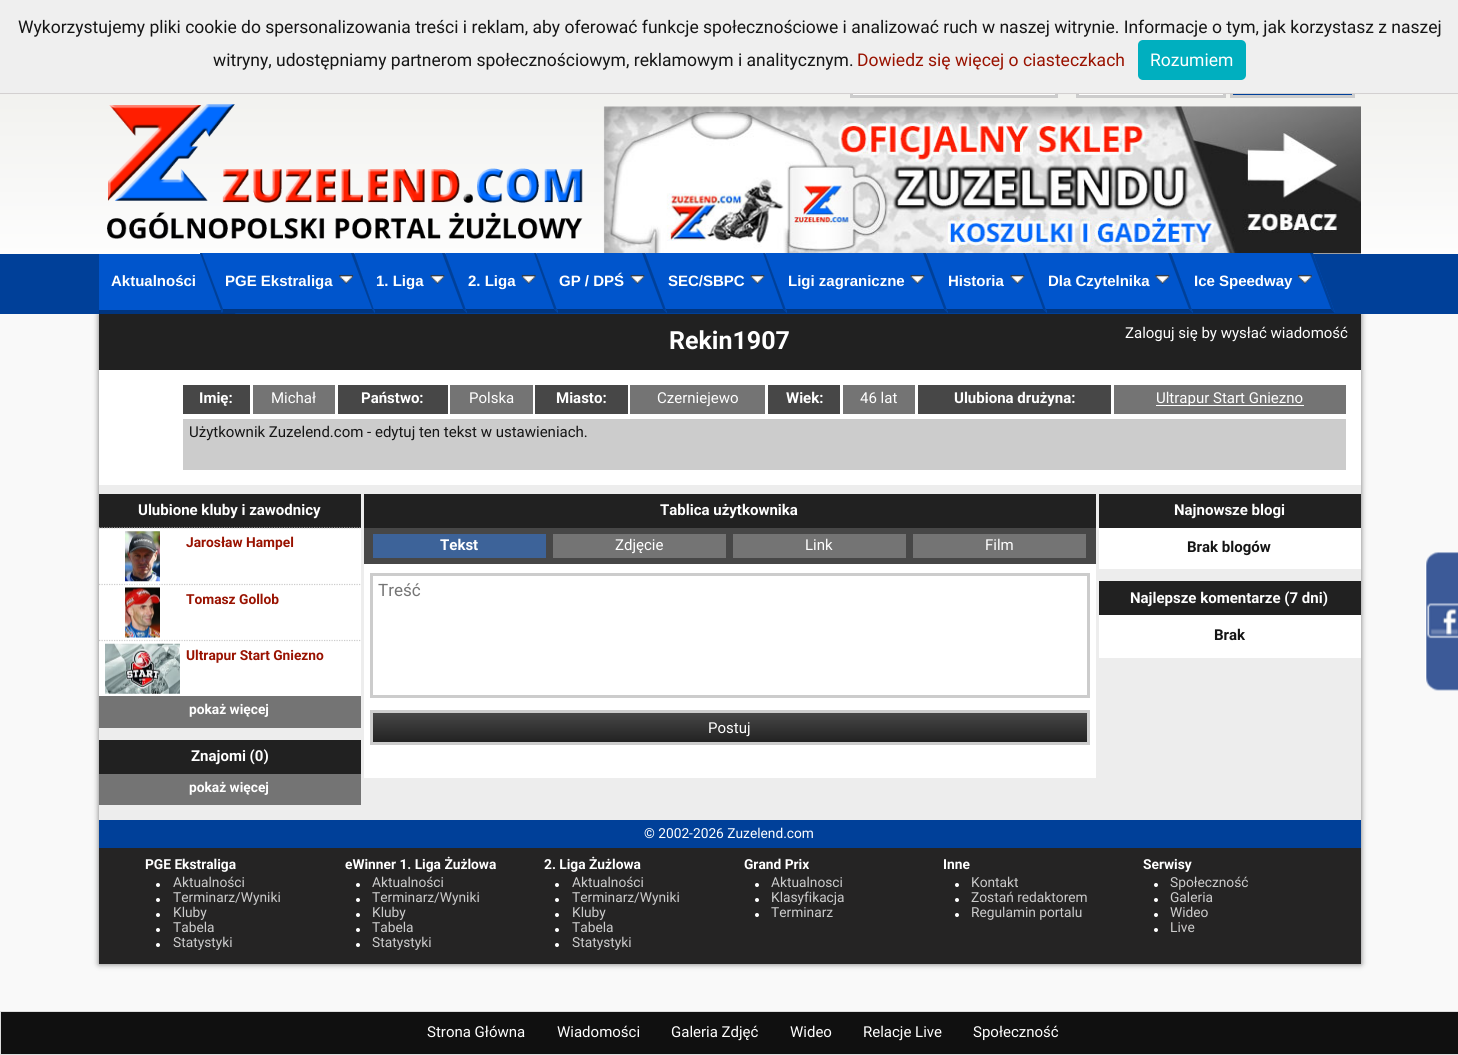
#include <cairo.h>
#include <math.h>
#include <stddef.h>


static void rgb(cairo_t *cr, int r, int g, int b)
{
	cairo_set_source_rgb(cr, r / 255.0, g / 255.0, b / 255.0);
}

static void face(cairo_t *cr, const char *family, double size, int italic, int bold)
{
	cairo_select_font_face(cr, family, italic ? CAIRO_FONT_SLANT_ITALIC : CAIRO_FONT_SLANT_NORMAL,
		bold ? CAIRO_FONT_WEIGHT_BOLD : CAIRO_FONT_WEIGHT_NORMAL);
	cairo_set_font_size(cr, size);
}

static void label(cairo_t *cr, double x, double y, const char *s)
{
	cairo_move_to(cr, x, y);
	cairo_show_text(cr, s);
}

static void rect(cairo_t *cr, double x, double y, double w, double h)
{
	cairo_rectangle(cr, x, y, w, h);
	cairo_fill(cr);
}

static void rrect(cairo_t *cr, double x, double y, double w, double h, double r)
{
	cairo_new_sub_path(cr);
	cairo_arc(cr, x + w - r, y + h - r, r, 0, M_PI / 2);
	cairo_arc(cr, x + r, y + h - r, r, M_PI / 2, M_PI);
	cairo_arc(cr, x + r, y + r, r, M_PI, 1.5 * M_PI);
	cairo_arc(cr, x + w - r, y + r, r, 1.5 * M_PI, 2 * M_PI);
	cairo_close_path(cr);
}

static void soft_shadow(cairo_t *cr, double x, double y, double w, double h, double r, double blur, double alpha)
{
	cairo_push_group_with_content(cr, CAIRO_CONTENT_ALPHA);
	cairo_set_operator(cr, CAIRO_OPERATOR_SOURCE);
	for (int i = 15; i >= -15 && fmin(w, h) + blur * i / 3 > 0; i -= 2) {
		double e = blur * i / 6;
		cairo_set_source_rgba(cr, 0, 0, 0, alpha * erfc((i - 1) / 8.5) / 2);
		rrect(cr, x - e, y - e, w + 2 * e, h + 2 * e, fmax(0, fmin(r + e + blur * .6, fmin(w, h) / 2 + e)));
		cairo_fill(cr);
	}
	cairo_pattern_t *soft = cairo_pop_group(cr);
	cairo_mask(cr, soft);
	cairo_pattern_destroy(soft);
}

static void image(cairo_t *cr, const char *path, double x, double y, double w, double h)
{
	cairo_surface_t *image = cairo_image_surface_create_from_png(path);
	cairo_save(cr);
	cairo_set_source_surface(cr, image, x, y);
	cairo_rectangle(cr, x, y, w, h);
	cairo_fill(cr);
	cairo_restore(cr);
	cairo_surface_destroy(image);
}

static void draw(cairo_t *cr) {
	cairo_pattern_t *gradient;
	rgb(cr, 249, 249, 249);
	cairo_paint(cr);
	gradient = cairo_pattern_create_linear(729, 59, 729, 254);
	cairo_pattern_add_color_stop_rgba(gradient, 0, 0.937, 0.937, 0.925, 1);
	cairo_pattern_add_color_stop_rgba(gradient, 1, 0.992, 0.992, 0.992, 1);
	cairo_set_source(cr, gradient);
	cairo_pattern_destroy(gradient);
	rect(cr, 0, 94, 1458, 160);
	rgb(cr, 255, 255, 255);
	rect(cr, 853, 94, 202, 1);
	cairo_rectangle(cr, 851.5, 70.5, 205, 26);
	rgb(cr, 204, 204, 204);
	cairo_set_line_width(cr, 3);
	cairo_stroke(cr);
	rgb(cr, 255, 255, 255);
	rect(cr, 1079, 94, 144, 1);
	cairo_rectangle(cr, 1077.5, 69.5, 147, 27);
	rgb(cr, 204, 204, 204);
	cairo_stroke(cr);
	gradient = cairo_pattern_create_linear(1293, 71, 1293, 95);
	cairo_pattern_add_color_stop_rgba(gradient, 0, 0, 0.333, 0.8, 1);
	cairo_pattern_add_color_stop_rgba(gradient, 1, 0, 0.251, 0.6, 1);
	cairo_set_source(cr, gradient);
	cairo_pattern_destroy(gradient);
	rect(cr, 1233, 94, 119, 1);
	cairo_rectangle(cr, 1231.5, 70.5, 122, 26);
	rgb(cr, 204, 204, 204);
	cairo_stroke(cr);
	rgb(cr, 239, 239, 239);
	rect(cr, 0, 0, 1458, 93);
	rgb(cr, 211, 208, 208);
	rect(cr, 0, 93, 1458, 1);
	face(cr, "Roboto", 17.5, 0, 0);
	rgb(cr, 21, 21, 21);
	label(cr, 18, 33, "Wykorzystujemy pliki cookie do spersonalizowania treści i reklam, aby oferować funkcje społecznościowe i analizować ruch w naszej witrynie. Informacje o tym, jak korzystasz z naszej");
	label(cr, 213, 66, "witryny, udostępniamy partnerom społecznościowym, reklamowym i analitycznym.");
	rgb(cr, 153, 18, 0);
	label(cr, 857, 66, "Dowiedz się więcej o ciasteczkach");
	rgb(cr, 0, 175, 191);
	rrect(cr, 1138, 40, 108, 40, 5);
	cairo_fill(cr);
	rgb(cr, 255, 255, 255);
	label(cr, 1150, 66, "Rozumiem");
	image(cr, "image0.png", 107, 104, 476, 135);
	image(cr, "image1.png", 603, 106, 758, 148);
	rgb(cr, 116, 116, 116);
	soft_shadow(cr, 99, 314, 1262, 650, 0, 3, 1);
	rgb(cr, 0, 64, 153);
	rect(cr, 0, 254, 1458, 60);
	rgb(cr, 0, 85, 204);
	rect(cr, 99, 254, 137, 60);
	rgb(cr, 0, 53, 128);
	cairo_new_path(cr);
	cairo_move_to(cr, 236, 314);
	cairo_line_to(cr, 99, 314);
	cairo_line_to(cr, 99, 310);
	cairo_line_to(cr, 234, 310);
	cairo_close_path(cr);
	cairo_fill(cr);
	face(cr, "Arimo", 15, 0, 1);
	rgb(cr, 255, 255, 255);
	label(cr, 111, 286, "Aktualności");
	rgb(cr, 0, 85, 204);
	cairo_new_path(cr);
	cairo_move_to(cr, 1171, 253);
	cairo_line_to(cr, 1313, 253);
	cairo_line_to(cr, 1335, 313);
	cairo_line_to(cr, 1193, 313);
	cairo_close_path(cr);
	cairo_fill(cr);
	rgb(cr, 0, 64, 153);
	cairo_new_path(cr);
	cairo_move_to(cr, 1313, 253);
	cairo_line_to(cr, 1335, 313);
	cairo_line_to(cr, 1331, 309);
	cairo_line_to(cr, 1310, 253);
	cairo_close_path(cr);
	cairo_fill(cr);
	rgb(cr, 0, 53, 128);
	cairo_new_path(cr);
	cairo_move_to(cr, 1335, 313);
	cairo_line_to(cr, 1193, 313);
	cairo_line_to(cr, 1191, 309);
	cairo_line_to(cr, 1331, 309);
	cairo_close_path(cr);
	cairo_fill(cr);
	rgb(cr, 0, 85, 204);
	cairo_new_path(cr);
	cairo_move_to(cr, 1025, 253);
	cairo_line_to(cr, 1171, 253);
	cairo_line_to(cr, 1193, 313);
	cairo_line_to(cr, 1047, 313);
	cairo_close_path(cr);
	cairo_fill(cr);
	rgb(cr, 0, 64, 153);
	cairo_new_path(cr);
	cairo_move_to(cr, 1171, 253);
	cairo_line_to(cr, 1193, 313);
	cairo_line_to(cr, 1189, 309);
	cairo_line_to(cr, 1168, 253);
	cairo_close_path(cr);
	cairo_fill(cr);
	rgb(cr, 0, 53, 128);
	cairo_new_path(cr);
	cairo_move_to(cr, 1193, 313);
	cairo_line_to(cr, 1047, 313);
	cairo_line_to(cr, 1046, 309);
	cairo_line_to(cr, 1189, 309);
	cairo_close_path(cr);
	cairo_fill(cr);
	rgb(cr, 0, 85, 204);
	cairo_new_path(cr);
	cairo_move_to(cr, 926, 253);
	cairo_line_to(cr, 1025, 253);
	cairo_line_to(cr, 1047, 313);
	cairo_line_to(cr, 948, 313);
	cairo_close_path(cr);
	cairo_fill(cr);
	rgb(cr, 0, 64, 153);
	cairo_new_path(cr);
	cairo_move_to(cr, 1025, 253);
	cairo_line_to(cr, 1047, 313);
	cairo_line_to(cr, 1043, 309);
	cairo_line_to(cr, 1023, 253);
	cairo_close_path(cr);
	cairo_fill(cr);
	rgb(cr, 0, 53, 128);
	cairo_new_path(cr);
	cairo_move_to(cr, 1047, 313);
	cairo_line_to(cr, 948, 313);
	cairo_line_to(cr, 946, 309);
	cairo_line_to(cr, 1043, 309);
	cairo_close_path(cr);
	cairo_fill(cr);
	rgb(cr, 0, 85, 204);
	cairo_new_path(cr);
	cairo_move_to(cr, 765, 253);
	cairo_line_to(cr, 926, 253);
	cairo_line_to(cr, 948, 313);
	cairo_line_to(cr, 787, 313);
	cairo_close_path(cr);
	cairo_fill(cr);
	rgb(cr, 0, 64, 153);
	cairo_new_path(cr);
	cairo_move_to(cr, 926, 253);
	cairo_line_to(cr, 948, 313);
	cairo_line_to(cr, 944, 309);
	cairo_line_to(cr, 923, 253);
	cairo_close_path(cr);
	cairo_fill(cr);
	rgb(cr, 0, 53, 128);
	cairo_new_path(cr);
	cairo_move_to(cr, 948, 313);
	cairo_line_to(cr, 787, 313);
	cairo_line_to(cr, 786, 309);
	cairo_line_to(cr, 944, 309);
	cairo_close_path(cr);
	cairo_fill(cr);
	rgb(cr, 0, 85, 204);
	cairo_new_path(cr);
	cairo_move_to(cr, 645, 253);
	cairo_line_to(cr, 765, 253);
	cairo_line_to(cr, 787, 313);
	cairo_line_to(cr, 667, 313);
	cairo_close_path(cr);
	cairo_fill(cr);
	rgb(cr, 0, 64, 153);
	cairo_new_path(cr);
	cairo_move_to(cr, 765, 253);
	cairo_line_to(cr, 787, 313);
	cairo_line_to(cr, 783, 309);
	cairo_line_to(cr, 763, 253);
	cairo_close_path(cr);
	cairo_fill(cr);
	rgb(cr, 0, 53, 128);
	cairo_new_path(cr);
	cairo_move_to(cr, 787, 313);
	cairo_line_to(cr, 667, 313);
	cairo_line_to(cr, 665, 309);
	cairo_line_to(cr, 783, 309);
	cairo_close_path(cr);
	cairo_fill(cr);
	rgb(cr, 0, 85, 204);
	cairo_new_path(cr);
	cairo_move_to(cr, 536, 253);
	cairo_line_to(cr, 645, 253);
	cairo_line_to(cr, 667, 313);
	cairo_line_to(cr, 558, 313);
	cairo_close_path(cr);
	cairo_fill(cr);
	rgb(cr, 0, 64, 153);
	cairo_new_path(cr);
	cairo_move_to(cr, 645, 253);
	cairo_line_to(cr, 667, 313);
	cairo_line_to(cr, 663, 309);
	cairo_line_to(cr, 642, 253);
	cairo_close_path(cr);
	cairo_fill(cr);
	rgb(cr, 0, 53, 128);
	cairo_new_path(cr);
	cairo_move_to(cr, 667, 313);
	cairo_line_to(cr, 558, 313);
	cairo_line_to(cr, 557, 309);
	cairo_line_to(cr, 663, 309);
	cairo_close_path(cr);
	cairo_fill(cr);
	rgb(cr, 0, 85, 204);
	cairo_new_path(cr);
	cairo_move_to(cr, 445, 253);
	cairo_line_to(cr, 536, 253);
	cairo_line_to(cr, 558, 313);
	cairo_line_to(cr, 467, 313);
	cairo_close_path(cr);
	cairo_fill(cr);
	rgb(cr, 0, 64, 153);
	cairo_new_path(cr);
	cairo_move_to(cr, 536, 253);
	cairo_line_to(cr, 558, 313);
	cairo_line_to(cr, 554, 309);
	cairo_line_to(cr, 534, 253);
	cairo_close_path(cr);
	cairo_fill(cr);
	rgb(cr, 0, 53, 128);
	cairo_new_path(cr);
	cairo_move_to(cr, 558, 313);
	cairo_line_to(cr, 467, 313);
	cairo_line_to(cr, 465, 309);
	cairo_line_to(cr, 554, 309);
	cairo_close_path(cr);
	cairo_fill(cr);
	rgb(cr, 0, 85, 204);
	cairo_new_path(cr);
	cairo_move_to(cr, 354, 253);
	cairo_line_to(cr, 445, 253);
	cairo_line_to(cr, 467, 313);
	cairo_line_to(cr, 375, 313);
	cairo_close_path(cr);
	cairo_fill(cr);
	rgb(cr, 0, 64, 153);
	cairo_new_path(cr);
	cairo_move_to(cr, 445, 253);
	cairo_line_to(cr, 467, 313);
	cairo_line_to(cr, 463, 309);
	cairo_line_to(cr, 442, 253);
	cairo_close_path(cr);
	cairo_fill(cr);
	rgb(cr, 0, 53, 128);
	cairo_new_path(cr);
	cairo_move_to(cr, 467, 313);
	cairo_line_to(cr, 375, 313);
	cairo_line_to(cr, 374, 309);
	cairo_line_to(cr, 463, 309);
	cairo_close_path(cr);
	cairo_fill(cr);
	rgb(cr, 0, 85, 204);
	cairo_new_path(cr);
	cairo_move_to(cr, 200, 253);
	cairo_line_to(cr, 354, 253);
	cairo_line_to(cr, 375, 313);
	cairo_line_to(cr, 222, 313);
	cairo_close_path(cr);
	cairo_fill(cr);
	rgb(cr, 0, 64, 153);
	cairo_new_path(cr);
	cairo_move_to(cr, 354, 253);
	cairo_line_to(cr, 375, 313);
	cairo_line_to(cr, 372, 309);
	cairo_line_to(cr, 351, 253);
	cairo_close_path(cr);
	cairo_fill(cr);
	rgb(cr, 0, 53, 128);
	cairo_new_path(cr);
	cairo_move_to(cr, 375, 313);
	cairo_line_to(cr, 222, 313);
	cairo_line_to(cr, 223, 309);
	cairo_line_to(cr, 372, 309);
	cairo_close_path(cr);
	cairo_fill(cr);
	rgb(cr, 0, 64, 153);
	cairo_new_path(cr);
	cairo_move_to(cr, 222, 313);
	cairo_line_to(cr, 200, 253);
	cairo_line_to(cr, 202, 253);
	cairo_line_to(cr, 223, 309);
	cairo_close_path(cr);
	cairo_fill(cr);
	rgb(cr, 255, 255, 255);
	label(cr, 225, 286, "PGE Ekstraliga");
	image(cr, "image2.png", 339, 274, 15, 10);
	label(cr, 376, 286, "1. Liga");
	image(cr, "image3.png", 430, 274, 15, 10);
	label(cr, 468, 286, "2. Liga");
	image(cr, "image4.png", 521, 274, 15, 10);
	label(cr, 559, 286, "GP / DPŚ");
	image(cr, "image3.png", 630, 274, 15, 10);
	label(cr, 668, 286, "SEC/SBPC");
	image(cr, "image3.png", 750, 274, 15, 10);
	label(cr, 788, 286, "Ligi zagraniczne");
	image(cr, "image3.png", 910, 274, 15, 10);
	label(cr, 948, 286, "Historia");
	image(cr, "image3.png", 1010, 274, 15, 10);
	label(cr, 1048, 286, "Dla Czytelnika");
	image(cr, "image3.png", 1155, 274, 15, 10);
	label(cr, 1194, 286, "Ice Speedway");
	image(cr, "image5.png", 1298, 274, 14, 10);
	rgb(cr, 237, 237, 237);
	rect(cr, 99, 485, 1262, 335);
	rgb(cr, 255, 255, 255);
	rect(cr, 99, 370, 1262, 115);
	rgb(cr, 33, 33, 33);
	rect(cr, 99, 314, 1262, 56);
	face(cr, "Roboto", 25, 0, 1);
	rgb(cr, 255, 255, 255);
	label(cr, 669, 349, "Rekin1907");
	face(cr, "Roboto", 15, 0, 0);
	label(cr, 1125, 338, "Zaloguj się by wysłać wiadomość");
	rgb(cr, 71, 71, 71);
	rect(cr, 183, 385, 67, 29);
	face(cr, "Roboto", 15, 0, 1);
	rgb(cr, 255, 255, 255);
	label(cr, 199, 403, "Imię:");
	rgb(cr, 116, 116, 116);
	rect(cr, 253, 385, 82, 29);
	face(cr, "Roboto", 15, 0, 0);
	rgb(cr, 255, 255, 255);
	label(cr, 271, 403, "Michał");
	rgb(cr, 71, 71, 71);
	rect(cr, 338, 385, 110, 29);
	face(cr, "Roboto", 15, 0, 1);
	rgb(cr, 255, 255, 255);
	label(cr, 361, 403, "Państwo:");
	rgb(cr, 116, 116, 116);
	rect(cr, 450, 385, 83, 29);
	face(cr, "Roboto", 15, 0, 0);
	rgb(cr, 255, 255, 255);
	label(cr, 469, 403, "Polska");
	rgb(cr, 71, 71, 71);
	rect(cr, 535, 385, 93, 29);
	face(cr, "Roboto", 15, 0, 1);
	rgb(cr, 255, 255, 255);
	label(cr, 556, 403, "Miasto:");
	rgb(cr, 116, 116, 116);
	rect(cr, 630, 385, 135, 29);
	face(cr, "Roboto", 15, 0, 0);
	rgb(cr, 255, 255, 255);
	label(cr, 657, 403, "Czerniejewo");
	rgb(cr, 71, 71, 71);
	rect(cr, 768, 385, 72, 29);
	face(cr, "Roboto", 15, 0, 1);
	rgb(cr, 255, 255, 255);
	label(cr, 786, 403, "Wiek:");
	rgb(cr, 116, 116, 116);
	rect(cr, 843, 385, 72, 29);
	face(cr, "Roboto", 15, 0, 0);
	rgb(cr, 255, 255, 255);
	label(cr, 860, 403, "46 lat");
	rgb(cr, 71, 71, 71);
	rect(cr, 918, 385, 193, 29);
	face(cr, "Roboto", 15, 0, 1);
	rgb(cr, 255, 255, 255);
	label(cr, 954, 403, "Ulubiona drużyna:");
	rgb(cr, 116, 116, 116);
	rect(cr, 1114, 385, 232, 29);
	rgb(cr, 255, 255, 255);
	rect(cr, 1156, 405, 148, 1);
	face(cr, "Roboto", 15, 0, 0);
	label(cr, 1156, 403, "Ultrapur Start Gniezno");
	rgb(cr, 204, 204, 204);
	rect(cr, 183, 419, 1163, 51);
	rgb(cr, 21, 21, 21);
	label(cr, 189, 437, "Użytkownik Zuzelend.com - edytuj ten tekst w ustawieniach.");
	rgb(cr, 255, 255, 255);
	rect(cr, 99, 528, 262, 168);
	rgb(cr, 33, 33, 33);
	rect(cr, 99, 494, 262, 34);
	face(cr, "Roboto", 15, 0, 1);
	rgb(cr, 255, 255, 255);
	label(cr, 138, 515, "Ulubione kluby i zawodnicy");
	cairo_new_path(cr);
	cairo_move_to(cr, 99, 528);
	cairo_line_to(cr, 361, 528);
	rgb(cr, 204, 204, 204);
	cairo_set_line_width(cr, 1.2);
	cairo_set_dash(cr, (double[]){1.25, 1.25}, 2, 0);
	cairo_stroke(cr);
	image(cr, "image6.png", 125, 531, 35, 51);
	face(cr, "Roboto", 13.75, 0, 1);
	rgb(cr, 153, 18, 0);
	label(cr, 186, 547, "Jarosław Hampel");
	cairo_new_path(cr);
	cairo_move_to(cr, 99, 584.5);
	cairo_line_to(cr, 361, 584.5);
	rgb(cr, 204, 204, 204);
	cairo_stroke(cr);
	image(cr, "image7.png", 125, 587, 35, 51);
	rgb(cr, 153, 18, 0);
	label(cr, 186, 604, "Tomasz Gollob");
	cairo_new_path(cr);
	cairo_move_to(cr, 99, 640.5);
	cairo_line_to(cr, 361, 640.5);
	rgb(cr, 204, 204, 204);
	cairo_stroke(cr);
	image(cr, "image8.png", 105, 643, 75, 51);
	rgb(cr, 153, 18, 0);
	label(cr, 186, 660, "Ultrapur Start Gniezno");
	rgb(cr, 116, 116, 116);
	rect(cr, 99, 696, 262, 32);
	rgb(cr, 255, 255, 255);
	label(cr, 189, 714, "pokaż więcej");
	rgb(cr, 33, 33, 33);
	rect(cr, 99, 740, 262, 34);
	face(cr, "Roboto", 15, 0, 1);
	rgb(cr, 255, 255, 255);
	label(cr, 191, 761, "Znajomi (0)");
	rgb(cr, 116, 116, 116);
	rect(cr, 99, 774, 262, 31);
	face(cr, "Roboto", 13.75, 0, 1);
	rgb(cr, 255, 255, 255);
	label(cr, 189, 792, "pokaż więcej");
	rect(cr, 364, 564, 732, 214);
	rgb(cr, 33, 33, 33);
	rect(cr, 364, 494, 732, 34);
	face(cr, "Roboto", 15, 0, 1);
	rgb(cr, 255, 255, 255);
	label(cr, 660, 515, "Tablica użytkownika");
	rgb(cr, 71, 71, 71);
	rect(cr, 364, 528, 732, 36);
	rgb(cr, 61, 99, 153);
	rect(cr, 373, 534, 173, 24);
	rgb(cr, 255, 255, 255);
	label(cr, 440, 550, "Tekst");
	rgb(cr, 116, 116, 116);
	rect(cr, 553, 534, 173, 24);
	face(cr, "Roboto", 15, 0, 0);
	rgb(cr, 255, 255, 255);
	label(cr, 615, 550, "Zdjęcie");
	rgb(cr, 116, 116, 116);
	rect(cr, 733, 534, 173, 24);
	rgb(cr, 255, 255, 255);
	label(cr, 805, 550, "Link");
	rgb(cr, 116, 116, 116);
	rect(cr, 913, 534, 173, 24);
	rgb(cr, 255, 255, 255);
	label(cr, 985, 550, "Film");
	cairo_rectangle(cr, 371.5, 574.5, 717, 122);
	rgb(cr, 204, 204, 204);
	cairo_set_line_width(cr, 3);
	cairo_set_dash(cr, NULL, 0, 0);
	cairo_stroke(cr);
	face(cr, "Roboto", 17, 0, 0);
	rgb(cr, 117, 117, 117);
	label(cr, 378, 596, "Treść");
	gradient = cairo_pattern_create_linear(730, 713, 730, 743);
	cairo_pattern_add_color_stop_rgba(gradient, 0, 0.278, 0.278, 0.278, 1);
	cairo_pattern_add_color_stop_rgba(gradient, 1, 0.129, 0.129, 0.129, 1);
	cairo_set_source(cr, gradient);
	cairo_pattern_destroy(gradient);
	rect(cr, 373, 713, 714, 29);
	cairo_rectangle(cr, 371.5, 711.5, 717, 32);
	rgb(cr, 204, 204, 204);
	cairo_stroke(cr);
	face(cr, "Roboto", 15, 0, 0);
	rgb(cr, 255, 255, 255);
	label(cr, 708, 733, "Postuj");
	rect(cr, 1099, 528, 262, 41);
	rgb(cr, 33, 33, 33);
	rect(cr, 1099, 494, 262, 34);
	face(cr, "Roboto", 15, 0, 1);
	rgb(cr, 255, 255, 255);
	label(cr, 1174, 515, "Najnowsze blogi");
	rgb(cr, 21, 21, 21);
	label(cr, 1187, 552, "Brak blogów");
	rgb(cr, 255, 255, 255);
	rect(cr, 1099, 615, 262, 43);
	rgb(cr, 33, 33, 33);
	rect(cr, 1099, 581, 262, 34);
	rgb(cr, 255, 255, 255);
	label(cr, 1130, 603, "Najlepsze komentarze (7 dni)");
	rgb(cr, 21, 21, 21);
	label(cr, 1214, 640, "Brak");
	rgb(cr, 0, 64, 153);
	rect(cr, 99, 820, 1262, 28);
	face(cr, "Roboto", 13.75, 0, 0);
	rgb(cr, 255, 255, 255);
	label(cr, 644, 838, "© 2002-2026 Zuzelend.com");
	rgb(cr, 37, 36, 36);
	rect(cr, 99, 848, 1262, 116);
	face(cr, "Roboto", 13.75, 0, 1);
	rgb(cr, 255, 255, 255);
	label(cr, 145, 869, "PGE Ekstraliga");
	cairo_new_path(cr);
	cairo_arc(cr, 158, 885, 2, 0, 2 * M_PI);
	cairo_fill(cr);
	face(cr, "Roboto", 13.75, 0, 0);
	rgb(cr, 204, 204, 204);
	label(cr, 173, 887, "Aktualności");
	rgb(cr, 255, 255, 255);
	cairo_new_path(cr);
	cairo_arc(cr, 158, 900, 2, 0, 2 * M_PI);
	cairo_fill(cr);
	rgb(cr, 204, 204, 204);
	label(cr, 173, 902, "Terminarz/Wyniki");
	rgb(cr, 255, 255, 255);
	cairo_new_path(cr);
	cairo_arc(cr, 158, 915, 2, 0, 2 * M_PI);
	cairo_fill(cr);
	rgb(cr, 204, 204, 204);
	label(cr, 173, 917, "Kluby");
	rgb(cr, 255, 255, 255);
	cairo_new_path(cr);
	cairo_arc(cr, 158, 930, 2, 0, 2 * M_PI);
	cairo_fill(cr);
	rgb(cr, 204, 204, 204);
	label(cr, 173, 932, "Tabela");
	rgb(cr, 255, 255, 255);
	cairo_new_path(cr);
	cairo_arc(cr, 158, 945, 2, 0, 2 * M_PI);
	cairo_fill(cr);
	rgb(cr, 204, 204, 204);
	label(cr, 173, 947, "Statystyki");
	face(cr, "Roboto", 13.75, 0, 1);
	rgb(cr, 255, 255, 255);
	label(cr, 345, 869, "eWinner 1. Liga Żużlowa");
	cairo_new_path(cr);
	cairo_arc(cr, 358, 885, 2, 0, 2 * M_PI);
	cairo_fill(cr);
	face(cr, "Roboto", 13.75, 0, 0);
	rgb(cr, 204, 204, 204);
	label(cr, 372, 887, "Aktualności");
	rgb(cr, 255, 255, 255);
	cairo_new_path(cr);
	cairo_arc(cr, 358, 900, 2, 0, 2 * M_PI);
	cairo_fill(cr);
	rgb(cr, 204, 204, 204);
	label(cr, 372, 902, "Terminarz/Wyniki");
	rgb(cr, 255, 255, 255);
	cairo_new_path(cr);
	cairo_arc(cr, 358, 915, 2, 0, 2 * M_PI);
	cairo_fill(cr);
	rgb(cr, 204, 204, 204);
	label(cr, 372, 917, "Kluby");
	rgb(cr, 255, 255, 255);
	cairo_new_path(cr);
	cairo_arc(cr, 358, 930, 2, 0, 2 * M_PI);
	cairo_fill(cr);
	rgb(cr, 204, 204, 204);
	label(cr, 372, 932, "Tabela");
	rgb(cr, 255, 255, 255);
	cairo_new_path(cr);
	cairo_arc(cr, 358, 945, 2, 0, 2 * M_PI);
	cairo_fill(cr);
	rgb(cr, 204, 204, 204);
	label(cr, 372, 947, "Statystyki");
	face(cr, "Roboto", 13.75, 0, 1);
	rgb(cr, 255, 255, 255);
	label(cr, 544, 869, "2. Liga Żużlowa");
	cairo_new_path(cr);
	cairo_arc(cr, 557, 885, 2, 0, 2 * M_PI);
	cairo_fill(cr);
	face(cr, "Roboto", 13.75, 0, 0);
	rgb(cr, 204, 204, 204);
	label(cr, 572, 887, "Aktualności");
	rgb(cr, 255, 255, 255);
	cairo_new_path(cr);
	cairo_arc(cr, 557, 900, 2, 0, 2 * M_PI);
	cairo_fill(cr);
	rgb(cr, 204, 204, 204);
	label(cr, 572, 902, "Terminarz/Wyniki");
	rgb(cr, 255, 255, 255);
	cairo_new_path(cr);
	cairo_arc(cr, 557, 915, 2, 0, 2 * M_PI);
	cairo_fill(cr);
	rgb(cr, 204, 204, 204);
	label(cr, 572, 917, "Kluby");
	rgb(cr, 255, 255, 255);
	cairo_new_path(cr);
	cairo_arc(cr, 557, 930, 2, 0, 2 * M_PI);
	cairo_fill(cr);
	rgb(cr, 204, 204, 204);
	label(cr, 572, 932, "Tabela");
	rgb(cr, 255, 255, 255);
	cairo_new_path(cr);
	cairo_arc(cr, 557, 945, 2, 0, 2 * M_PI);
	cairo_fill(cr);
	rgb(cr, 204, 204, 204);
	label(cr, 572, 947, "Statystyki");
	face(cr, "Roboto", 13.75, 0, 1);
	rgb(cr, 255, 255, 255);
	label(cr, 744, 869, "Grand Prix");
	cairo_new_path(cr);
	cairo_arc(cr, 757, 885, 2, 0, 2 * M_PI);
	cairo_fill(cr);
	face(cr, "Roboto", 13.75, 0, 0);
	rgb(cr, 204, 204, 204);
	label(cr, 771, 887, "Aktualnosci");
	rgb(cr, 255, 255, 255);
	cairo_new_path(cr);
	cairo_arc(cr, 757, 900, 2, 0, 2 * M_PI);
	cairo_fill(cr);
	rgb(cr, 204, 204, 204);
	label(cr, 771, 902, "Klasyfikacja");
	rgb(cr, 255, 255, 255);
	cairo_new_path(cr);
	cairo_arc(cr, 757, 915, 2, 0, 2 * M_PI);
	cairo_fill(cr);
	rgb(cr, 204, 204, 204);
	label(cr, 771, 917, "Terminarz");
	face(cr, "Roboto", 13.75, 0, 1);
	rgb(cr, 255, 255, 255);
	label(cr, 943, 869, "Inne");
	cairo_new_path(cr);
	cairo_arc(cr, 957, 885, 2, 0, 2 * M_PI);
	cairo_fill(cr);
	face(cr, "Roboto", 13.75, 0, 0);
	rgb(cr, 204, 204, 204);
	label(cr, 971, 887, "Kontakt");
	rgb(cr, 255, 255, 255);
	cairo_new_path(cr);
	cairo_arc(cr, 957, 900, 2, 0, 2 * M_PI);
	cairo_fill(cr);
	rgb(cr, 204, 204, 204);
	label(cr, 971, 902, "Zostań redaktorem");
	rgb(cr, 255, 255, 255);
	cairo_new_path(cr);
	cairo_arc(cr, 957, 915, 2, 0, 2 * M_PI);
	cairo_fill(cr);
	rgb(cr, 204, 204, 204);
	label(cr, 971, 917, "Regulamin portalu");
	face(cr, "Roboto", 13.75, 0, 1);
	rgb(cr, 255, 255, 255);
	label(cr, 1143, 869, "Serwisy");
	cairo_new_path(cr);
	cairo_arc(cr, 1156, 885, 2, 0, 2 * M_PI);
	cairo_fill(cr);
	face(cr, "Roboto", 13.75, 0, 0);
	rgb(cr, 204, 204, 204);
	label(cr, 1170, 887, "Społeczność");
	rgb(cr, 255, 255, 255);
	cairo_new_path(cr);
	cairo_arc(cr, 1156, 900, 2, 0, 2 * M_PI);
	cairo_fill(cr);
	rgb(cr, 204, 204, 204);
	label(cr, 1170, 902, "Galeria");
	rgb(cr, 255, 255, 255);
	cairo_new_path(cr);
	cairo_arc(cr, 1156, 915, 2, 0, 2 * M_PI);
	cairo_fill(cr);
	rgb(cr, 204, 204, 204);
	label(cr, 1170, 917, "Wideo");
	rgb(cr, 255, 255, 255);
	cairo_new_path(cr);
	cairo_arc(cr, 1156, 930, 2, 0, 2 * M_PI);
	cairo_fill(cr);
	rgb(cr, 204, 204, 204);
	label(cr, 1170, 932, "Live");
	rgb(cr, 16, 16, 16);
	cairo_rectangle(cr, 0.5, 1011.5, 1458, 43);
	cairo_fill_preserve(cr);
	rgb(cr, 221, 221, 221);
	cairo_set_line_width(cr, 1);
	cairo_stroke(cr);
	face(cr, "Roboto", 15, 0, 0);
	rgb(cr, 255, 255, 255);
	label(cr, 427, 1037, "Strona Główna");
	label(cr, 557, 1037, "Wiadomości");
	label(cr, 671, 1037, "Galeria Zdjęć");
	label(cr, 790, 1037, "Wideo");
	label(cr, 863, 1037, "Relacje Live");
	label(cr, 973, 1037, "Społeczność");
	image(cr, "image9.png", 1425, 552, 33, 139);
}

int main(void) {
	cairo_surface_t *surface = cairo_image_surface_create(CAIRO_FORMAT_RGB24, 1458, 1055);
	cairo_t *cr = cairo_create(surface);
	cairo_font_options_t *options = cairo_font_options_create();
	cairo_font_options_set_hint_metrics(options, CAIRO_HINT_METRICS_OFF);
	cairo_font_options_set_hint_style(options, CAIRO_HINT_STYLE_NONE);
	cairo_set_font_options(cr, options);
	cairo_set_miter_limit(cr, 4);
	draw(cr);
	cairo_surface_write_to_png(surface, "render.png");
	cairo_font_options_destroy(options);
	cairo_destroy(cr);
	cairo_surface_destroy(surface);
	return 0;
}
